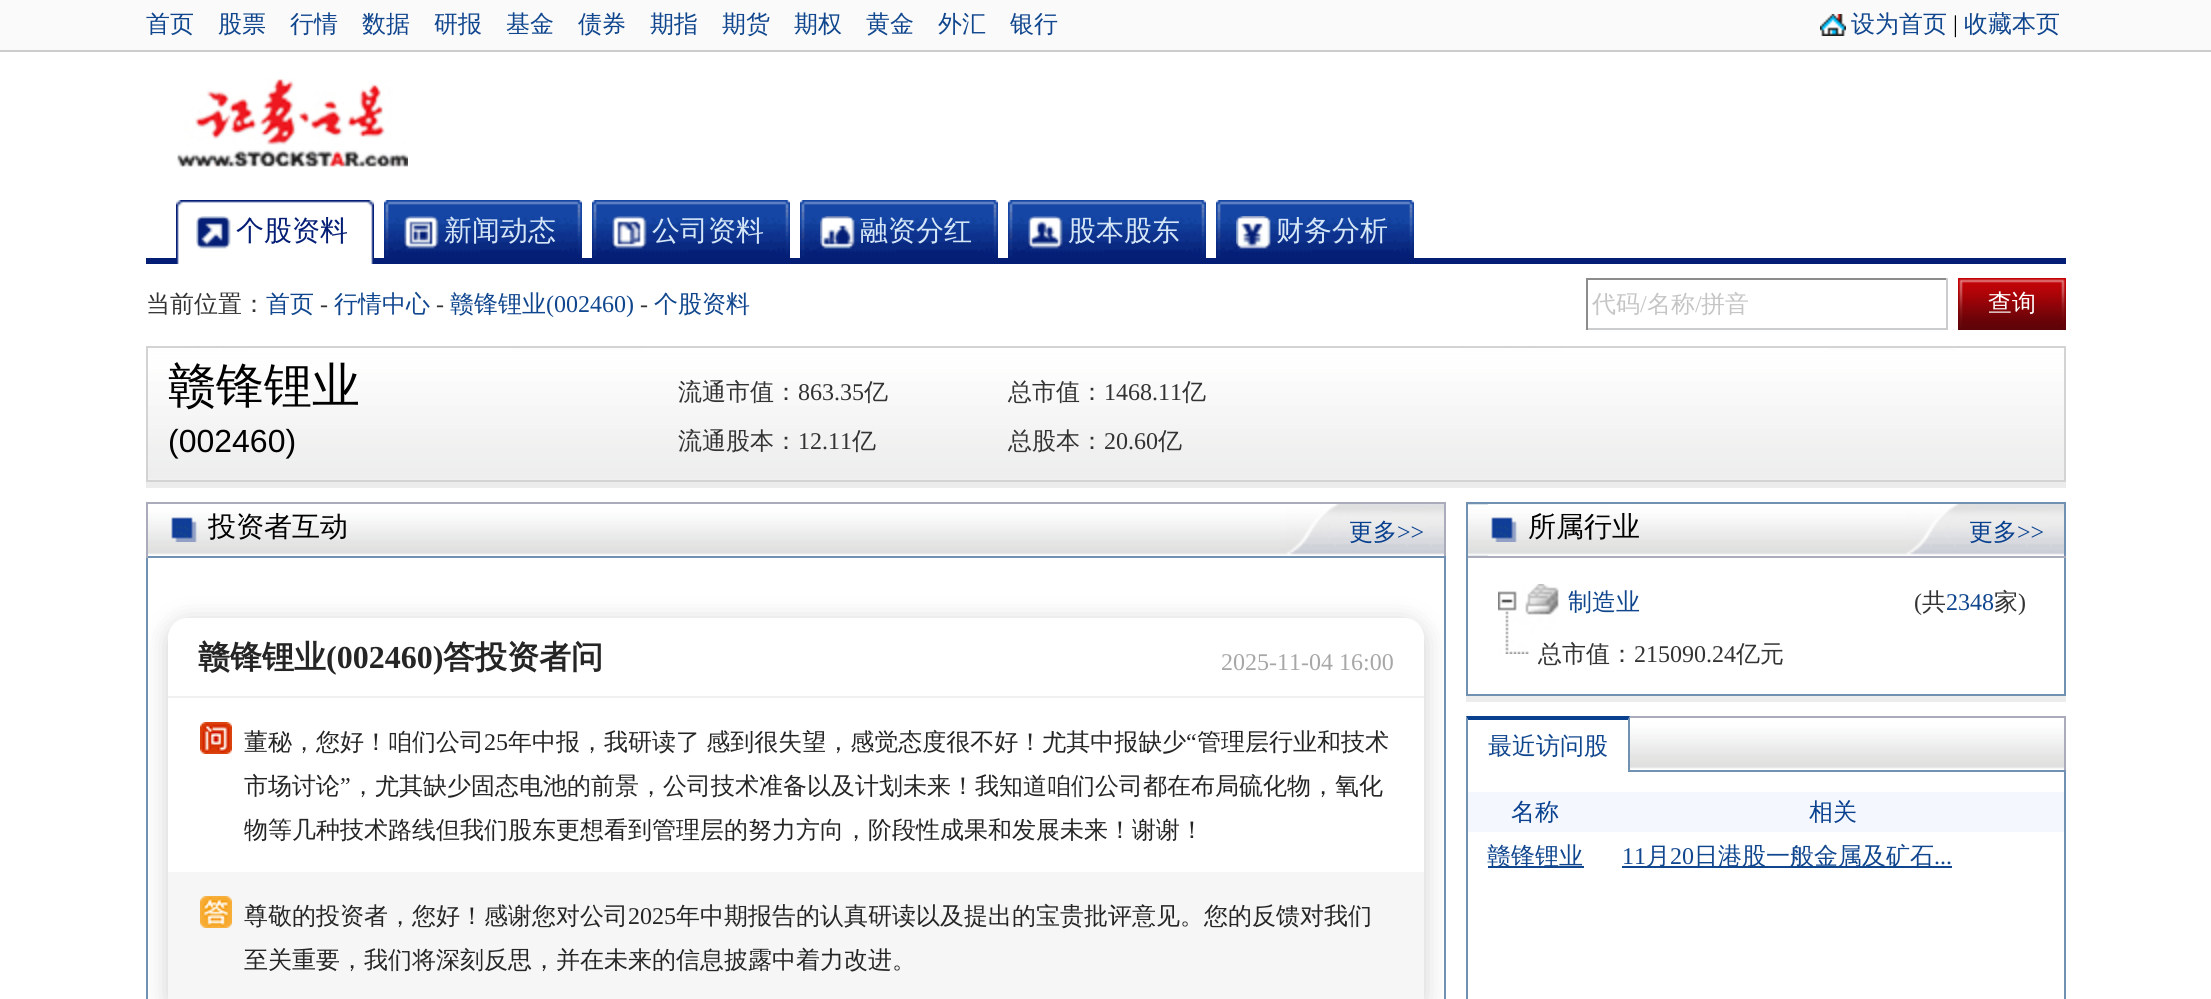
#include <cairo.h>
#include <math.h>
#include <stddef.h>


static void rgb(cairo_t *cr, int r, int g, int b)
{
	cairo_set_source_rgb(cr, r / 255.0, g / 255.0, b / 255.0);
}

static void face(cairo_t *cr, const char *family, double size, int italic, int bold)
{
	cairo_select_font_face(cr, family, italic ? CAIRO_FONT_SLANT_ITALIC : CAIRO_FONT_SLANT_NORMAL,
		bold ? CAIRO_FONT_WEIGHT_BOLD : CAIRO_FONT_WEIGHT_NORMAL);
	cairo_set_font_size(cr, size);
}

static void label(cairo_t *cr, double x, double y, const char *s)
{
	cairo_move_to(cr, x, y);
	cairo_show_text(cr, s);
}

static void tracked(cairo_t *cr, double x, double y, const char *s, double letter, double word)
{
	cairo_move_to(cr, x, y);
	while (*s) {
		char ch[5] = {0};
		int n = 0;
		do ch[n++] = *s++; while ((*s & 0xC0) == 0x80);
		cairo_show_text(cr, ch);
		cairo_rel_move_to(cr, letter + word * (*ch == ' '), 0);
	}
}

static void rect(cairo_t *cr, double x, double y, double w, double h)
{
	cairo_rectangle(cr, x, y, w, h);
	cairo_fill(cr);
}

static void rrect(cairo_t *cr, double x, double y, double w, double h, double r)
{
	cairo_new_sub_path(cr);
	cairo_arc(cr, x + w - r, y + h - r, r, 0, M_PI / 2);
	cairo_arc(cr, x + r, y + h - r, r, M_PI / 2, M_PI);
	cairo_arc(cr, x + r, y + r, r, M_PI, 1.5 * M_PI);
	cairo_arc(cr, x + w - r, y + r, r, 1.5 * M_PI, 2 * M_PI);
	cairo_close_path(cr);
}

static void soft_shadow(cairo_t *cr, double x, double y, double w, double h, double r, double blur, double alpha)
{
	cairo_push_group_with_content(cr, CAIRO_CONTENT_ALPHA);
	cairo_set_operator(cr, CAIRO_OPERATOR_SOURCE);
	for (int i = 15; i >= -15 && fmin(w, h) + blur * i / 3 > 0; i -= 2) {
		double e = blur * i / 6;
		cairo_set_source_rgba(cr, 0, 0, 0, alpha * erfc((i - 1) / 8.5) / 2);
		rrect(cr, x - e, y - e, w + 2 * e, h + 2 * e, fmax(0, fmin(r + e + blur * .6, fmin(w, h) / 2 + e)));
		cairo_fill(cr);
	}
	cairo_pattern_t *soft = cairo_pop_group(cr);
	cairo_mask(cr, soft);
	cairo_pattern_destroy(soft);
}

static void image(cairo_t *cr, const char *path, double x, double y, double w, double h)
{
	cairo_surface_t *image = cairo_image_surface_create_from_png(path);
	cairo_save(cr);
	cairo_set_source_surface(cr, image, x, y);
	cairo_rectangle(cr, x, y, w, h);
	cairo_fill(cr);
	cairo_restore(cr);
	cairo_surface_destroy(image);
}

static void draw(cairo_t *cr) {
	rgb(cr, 255, 255, 255);
	cairo_paint(cr);
	rgb(cr, 250, 250, 250);
	rect(cr, 0, 0, 2211, 50);
	rgb(cr, 204, 204, 204);
	rect(cr, 0, 50, 2211, 2);
	face(cr, "WenQuanYi Zen Hei Medium", 24, 0, 0);
	rgb(cr, 16, 70, 142);
	label(cr, 146, 32, "首页");
	label(cr, 218, 32, "股票");
	label(cr, 290, 32, "行情");
	label(cr, 362, 32, "数据");
	label(cr, 434, 32, "研报");
	label(cr, 506, 32, "基金");
	label(cr, 578, 32, "债券");
	label(cr, 650, 32, "期指");
	label(cr, 722, 32, "期货");
	label(cr, 794, 32, "期权");
	label(cr, 866, 32, "黄金");
	label(cr, 938, 32, "外汇");
	label(cr, 1010, 32, "银行");
	image(cr, "image0.png", 1820, 14, 26, 22);
	label(cr, 1851, 32, "设为首页");
	face(cr, "Liberation Serif", 24, 0, 0);
	rgb(cr, 0, 0, 0);
	label(cr, 1953, 32, "|");
	face(cr, "WenQuanYi Zen Hei Medium", 24, 0, 0);
	rgb(cr, 16, 70, 142);
	label(cr, 1964, 32, "收藏本页");
	image(cr, "image1.png", 176, 79, 232, 88);
	rgb(cr, 4, 30, 117);
	rect(cr, 146, 258, 1920, 6);
	image(cr, "image2.png", 176, 200, 198, 64);
	image(cr, "image3.png", 196, 216, 35, 33);
	face(cr, "WenQuanYi Zen Hei Medium", 28, 0, 0);
	label(cr, 236, 240, "个股资料");
	image(cr, "image4.png", 384, 200, 198, 58);
	image(cr, "image5.png", 404, 216, 35, 33);
	rgb(cr, 213, 230, 247);
	label(cr, 444, 240, "新闻动态");
	image(cr, "image4.png", 592, 200, 198, 58);
	image(cr, "image6.png", 612, 216, 35, 33);
	label(cr, 652, 240, "公司资料");
	image(cr, "image4.png", 800, 200, 198, 58);
	image(cr, "image7.png", 820, 216, 35, 33);
	label(cr, 860, 240, "融资分红");
	image(cr, "image4.png", 1008, 200, 198, 58);
	image(cr, "image8.png", 1028, 216, 35, 33);
	label(cr, 1068, 240, "股本股东");
	image(cr, "image4.png", 1216, 200, 198, 58);
	image(cr, "image9.png", 1236, 216, 35, 33);
	label(cr, 1276, 240, "财务分析");
	face(cr, "WenQuanYi Zen Hei Medium", 24, 0, 0);
	rgb(cr, 51, 51, 51);
	label(cr, 146, 312, "当前位置：");
	rgb(cr, 16, 70, 142);
	label(cr, 266, 312, "首页");
	face(cr, "Liberation Serif", 24, 0, 0);
	rgb(cr, 51, 51, 51);
	label(cr, 320, 312, "-");
	face(cr, "WenQuanYi Zen Hei Medium", 24, 0, 0);
	rgb(cr, 16, 70, 142);
	label(cr, 334, 312, "行情中心");
	face(cr, "Liberation Serif", 24, 0, 0);
	rgb(cr, 51, 51, 51);
	label(cr, 436, 312, "-");
	face(cr, "WenQuanYi Zen Hei Medium", 24, 0, 0);
	rgb(cr, 16, 70, 142);
	label(cr, 450, 312, "赣锋锂业");
	face(cr, "Liberation Serif", 24, 0, 0);
	label(cr, 546, 312, "(002460)");
	rgb(cr, 51, 51, 51);
	label(cr, 640, 312, "-");
	face(cr, "WenQuanYi Zen Hei Medium", 24, 0, 0);
	rgb(cr, 16, 70, 142);
	label(cr, 654, 312, "个股资料");
	rgb(cr, 140, 140, 140);
	rect(cr, 1586, 278, 362, 2);
	rgb(cr, 203, 204, 206);
	rect(cr, 1946, 278, 2, 52);
	rect(cr, 1586, 328, 362, 2);
	rgb(cr, 140, 140, 140);
	rect(cr, 1586, 278, 2, 52);
	rgb(cr, 197, 197, 197);
	label(cr, 1592, 312, "代码");
	face(cr, "Liberation Serif", 24, 0, 0);
	label(cr, 1640, 312, "/");
	face(cr, "WenQuanYi Zen Hei Medium", 24, 0, 0);
	label(cr, 1647, 312, "名称");
	face(cr, "Liberation Serif", 24, 0, 0);
	label(cr, 1695, 312, "/");
	face(cr, "WenQuanYi Zen Hei Medium", 24, 0, 0);
	label(cr, 1701, 312, "拼音");
	image(cr, "image10.png", 1958, 278, 108, 52);
	rgb(cr, 255, 255, 255);
	label(cr, 1988, 311, "查询");
	rgb(cr, 236, 236, 236);
	rect(cr, 146, 482, 1920, 6);
	image(cr, "image11.png", 148, 348, 1916, 132);
	cairo_rectangle(cr, 147, 347, 1918, 134);
	rgb(cr, 211, 211, 211);
	cairo_stroke(cr);
	face(cr, "WenQuanYi Zen Hei Medium", 48, 0, 0);
	rgb(cr, 0, 0, 0);
	label(cr, 168, 402, "赣锋锂业");
	face(cr, "Liberation Sans", 32, 0, 0);
	label(cr, 168, 452, "(002460)");
	face(cr, "WenQuanYi Zen Hei Medium", 24, 0, 0);
	rgb(cr, 51, 51, 51);
	label(cr, 678, 400, "流通市值：");
	face(cr, "Liberation Serif", 24, 0, 0);
	label(cr, 798, 400, "863.35");
	face(cr, "WenQuanYi Zen Hei Medium", 24, 0, 0);
	label(cr, 864, 400, "亿");
	label(cr, 1008, 400, "总市值：");
	face(cr, "Liberation Serif", 24, 0, 0);
	label(cr, 1104, 400, "1468.11");
	face(cr, "WenQuanYi Zen Hei Medium", 24, 0, 0);
	label(cr, 1182, 400, "亿");
	label(cr, 678, 449, "流通股本：");
	face(cr, "Liberation Serif", 24, 0, 0);
	label(cr, 798, 449, "12.11");
	face(cr, "WenQuanYi Zen Hei Medium", 24, 0, 0);
	label(cr, 852, 449, "亿");
	label(cr, 1008, 449, "总股本：");
	face(cr, "Liberation Serif", 24, 0, 0);
	label(cr, 1104, 449, "20.60");
	face(cr, "WenQuanYi Zen Hei Medium", 24, 0, 0);
	label(cr, 1158, 449, "亿");
	image(cr, "image12.png", 148, 504, 1296, 52);
	rgb(cr, 170, 172, 188);
	rect(cr, 146, 502, 1300, 2);
	rect(cr, 1444, 502, 2, 56);
	rgb(cr, 112, 145, 178);
	rect(cr, 146, 556, 1300, 2);
	rgb(cr, 170, 172, 188);
	rect(cr, 146, 502, 2, 56);
	image(cr, "image13.png", 171, 517, 26, 25);
	face(cr, "WenQuanYi Zen Hei Medium", 28, 0, 0);
	rgb(cr, 0, 0, 0);
	label(cr, 208, 536, "投资者互动");
	image(cr, "image14.png", 1286, 504, 158, 51);
	face(cr, "WenQuanYi Zen Hei Medium", 24, 0, 0);
	rgb(cr, 9, 65, 143);
	label(cr, 1349, 540, "更多");
	face(cr, "Liberation Serif", 24, 0, 0);
	label(cr, 1397, 540, ">>");
	rgb(cr, 112, 145, 178);
	rect(cr, 1444, 558, 2, 441);
	rect(cr, 146, 558, 2, 441);
	cairo_save(cr);
	cairo_rectangle(cr, 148, 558, 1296, 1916);
	cairo_clip(cr);
	cairo_set_fill_rule(cr, CAIRO_FILL_RULE_EVEN_ODD);
	cairo_new_path(cr);
	cairo_move_to(cr, 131, 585);
	cairo_line_to(cr, 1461, 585);
	cairo_line_to(cr, 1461, 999);
	cairo_line_to(cr, 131, 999);
	cairo_close_path(cr);
	cairo_move_to(cr, 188, 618);
	cairo_line_to(cr, 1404, 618);
	cairo_curve_to(cr, 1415, 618, 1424, 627, 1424, 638);
	cairo_line_to(cr, 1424, 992);
	cairo_curve_to(cr, 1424, 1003, 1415, 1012, 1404, 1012);
	cairo_line_to(cr, 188, 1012);
	cairo_curve_to(cr, 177, 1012, 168, 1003, 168, 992);
	cairo_line_to(cr, 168, 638);
	cairo_curve_to(cr, 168, 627, 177, 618, 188, 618);
	cairo_close_path(cr);
	cairo_clip(cr);
	rgb(cr, 173, 173, 173);
	soft_shadow(cr, 168, 622, 1256, 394, 20, 12, 0.6);
	cairo_restore(cr);
	rgb(cr, 240, 240, 240);
	rect(cr, 168, 696, 1256, 2);
	face(cr, "WenQuanYi Zen Hei", 32, 0, 1);
	rgb(cr, 37, 37, 37);
	label(cr, 198, 668, "赣锋锂业");
	face(cr, "Liberation Serif", 32, 0, 1);
	label(cr, 326, 668, "(002460)");
	face(cr, "WenQuanYi Zen Hei", 32, 0, 1);
	label(cr, 443, 668, "答投资者问");
	face(cr, "Liberation Serif", 24, 0, 0);
	rgb(cr, 167, 167, 167);
	label(cr, 1221, 670, "2025-11-04 16:00");
	image(cr, "image15.png", 200, 722, 32, 32);
	face(cr, "WenQuanYi Zen Hei Medium", 24, 0, 0);
	rgb(cr, 37, 37, 37);
	label(cr, 244, 750, "董秘，您好！咱们公司");
	face(cr, "Liberation Serif", 24, 0, 0);
	label(cr, 484, 750, "25");
	face(cr, "WenQuanYi Zen Hei Medium", 24, 0, 0);
	tracked(cr, 508, 750, "年中报，我研读了 感到很失望，感觉态度很不好！尤其中报缺少", 0, -1);
	face(cr, "Liberation Serif", 24, 0, 0);
	label(cr, 1186, 750, "“");
	face(cr, "WenQuanYi Zen Hei Medium", 24, 0, 0);
	label(cr, 1197, 750, "管理层行业和技术");
	label(cr, 244, 794, "市场讨论");
	face(cr, "Liberation Serif", 24, 0, 0);
	label(cr, 340, 794, "”");
	face(cr, "WenQuanYi Zen Hei Medium", 24, 0, 0);
	label(cr, 351, 794, "，尤其缺少固态电池的前景，公司技术准备以及计划未来！我知道咱们公司都在布局硫化物，氧化");
	label(cr, 244, 838, "物等几种技术路线但我们股东更想看到管理层的努力方向，阶段性成果和发展未来！谢谢！");
	rgb(cr, 246, 246, 246);
	rect(cr, 168, 872, 1256, 127);
	image(cr, "image16.png", 200, 896, 32, 32);
	rgb(cr, 37, 37, 37);
	label(cr, 244, 924, "尊敬的投资者，您好！感谢您对公司");
	face(cr, "Liberation Serif", 24, 0, 0);
	label(cr, 628, 924, "2025");
	face(cr, "WenQuanYi Zen Hei Medium", 24, 0, 0);
	label(cr, 676, 924, "年中期报告的认真研读以及提出的宝贵批评意见。您的反馈对我们");
	label(cr, 244, 968, "至关重要，我们将深刻反思，并在未来的信息披露中着力改进。");
	rgb(cr, 236, 236, 236);
	rect(cr, 1466, 696, 600, 6);
	image(cr, "image17.png", 1468, 504, 20, 52);
	rgb(cr, 112, 145, 178);
	rect(cr, 1466, 502, 600, 2);
	rect(cr, 2064, 502, 2, 194);
	rgb(cr, 170, 172, 188);
	rect(cr, 1466, 556, 600, 2);
	rgb(cr, 112, 145, 178);
	rect(cr, 1466, 502, 2, 56);
	image(cr, "image18.png", 1488, 504, 576, 52);
	image(cr, "image19.png", 1491, 517, 26, 25);
	face(cr, "WenQuanYi Zen Hei Medium", 28, 0, 0);
	rgb(cr, 0, 0, 0);
	label(cr, 1528, 536, "所属行业");
	image(cr, "image14.png", 1906, 504, 158, 51);
	face(cr, "WenQuanYi Zen Hei Medium", 24, 0, 0);
	rgb(cr, 9, 65, 143);
	label(cr, 1969, 540, "更多");
	face(cr, "Liberation Serif", 24, 0, 0);
	label(cr, 2017, 540, ">>");
	rgb(cr, 112, 145, 178);
	rect(cr, 1466, 694, 600, 2);
	rect(cr, 1466, 558, 2, 138);
	image(cr, "image20.png", 1498, 584, 61, 70);
	face(cr, "WenQuanYi Zen Hei Medium", 24, 0, 0);
	rgb(cr, 16, 70, 142);
	label(cr, 1568, 610, "制造业");
	face(cr, "Liberation Serif", 24, 0, 0);
	rgb(cr, 51, 51, 51);
	label(cr, 1914, 610, "(");
	face(cr, "WenQuanYi Zen Hei Medium", 24, 0, 0);
	label(cr, 1922, 610, "共");
	face(cr, "Liberation Serif", 24, 0, 0);
	rgb(cr, 16, 70, 142);
	label(cr, 1946, 610, "2348");
	face(cr, "WenQuanYi Zen Hei Medium", 24, 0, 0);
	rgb(cr, 51, 51, 51);
	label(cr, 1994, 610, "家");
	face(cr, "Liberation Serif", 24, 0, 0);
	label(cr, 2018, 610, ")");
	face(cr, "WenQuanYi Zen Hei Medium", 24, 0, 0);
	label(cr, 1538, 662, "总市值：");
	face(cr, "Liberation Serif", 24, 0, 0);
	label(cr, 1634, 662, "215090.24");
	face(cr, "WenQuanYi Zen Hei Medium", 24, 0, 0);
	label(cr, 1736, 662, "亿元");
	image(cr, "image21.png", 1630, 718, 434, 52);
	rgb(cr, 170, 172, 188);
	rect(cr, 1630, 716, 436, 2);
	rect(cr, 2064, 716, 2, 56);
	rgb(cr, 112, 145, 178);
	rect(cr, 1630, 770, 436, 2);
	rgb(cr, 9, 65, 143);
	cairo_new_path(cr);
	cairo_move_to(cr, 1466, 716);
	cairo_line_to(cr, 1630, 716);
	cairo_line_to(cr, 1628, 720);
	cairo_line_to(cr, 1468, 720);
	cairo_close_path(cr);
	cairo_fill(cr);
	rgb(cr, 112, 145, 178);
	cairo_new_path(cr);
	cairo_move_to(cr, 1630, 716);
	cairo_line_to(cr, 1630, 772);
	cairo_line_to(cr, 1628, 772);
	cairo_line_to(cr, 1628, 720);
	cairo_close_path(cr);
	cairo_fill(cr);
	cairo_new_path(cr);
	cairo_move_to(cr, 1466, 772);
	cairo_line_to(cr, 1466, 716);
	cairo_line_to(cr, 1468, 720);
	cairo_line_to(cr, 1468, 772);
	cairo_close_path(cr);
	cairo_fill(cr);
	rgb(cr, 16, 70, 142);
	label(cr, 1488, 754, "最近访问股");
	rgb(cr, 112, 145, 178);
	rect(cr, 2064, 772, 2, 227);
	rect(cr, 1466, 772, 2, 227);
	rgb(cr, 245, 247, 254);
	rect(cr, 1468, 792, 596, 40);
	rgb(cr, 9, 65, 143);
	label(cr, 1511, 820, "名称");
	label(cr, 1809, 820, "相关");
	rgb(cr, 16, 70, 142);
	rect(cr, 1488, 866, 96, 2);
	label(cr, 1487, 864, "赣锋锂业");
	face(cr, "Liberation Serif", 24, 0, 0);
	label(cr, 1622, 864, "11");
	rect(cr, 1622, 866, 330, 2);
	face(cr, "WenQuanYi Zen Hei Medium", 24, 0, 0);
	label(cr, 1646, 864, "月");
	face(cr, "Liberation Serif", 24, 0, 0);
	label(cr, 1670, 864, "20");
	face(cr, "WenQuanYi Zen Hei Medium", 24, 0, 0);
	label(cr, 1694, 864, "日港股一般金属及矿石");
	face(cr, "Liberation Serif", 24, 0, 0);
	label(cr, 1934, 864, "...");
}

int main(void) {
	cairo_surface_t *surface = cairo_image_surface_create(CAIRO_FORMAT_RGB24, 2211, 999);
	cairo_t *cr = cairo_create(surface);
	cairo_font_options_t *options = cairo_font_options_create();
	cairo_font_options_set_hint_metrics(options, CAIRO_HINT_METRICS_OFF);
	cairo_font_options_set_hint_style(options, CAIRO_HINT_STYLE_NONE);
	cairo_set_font_options(cr, options);
	cairo_set_miter_limit(cr, 4);
	draw(cr);
	cairo_surface_write_to_png(surface, "render.png");
	cairo_font_options_destroy(options);
	cairo_destroy(cr);
	cairo_surface_destroy(surface);
	return 0;
}
